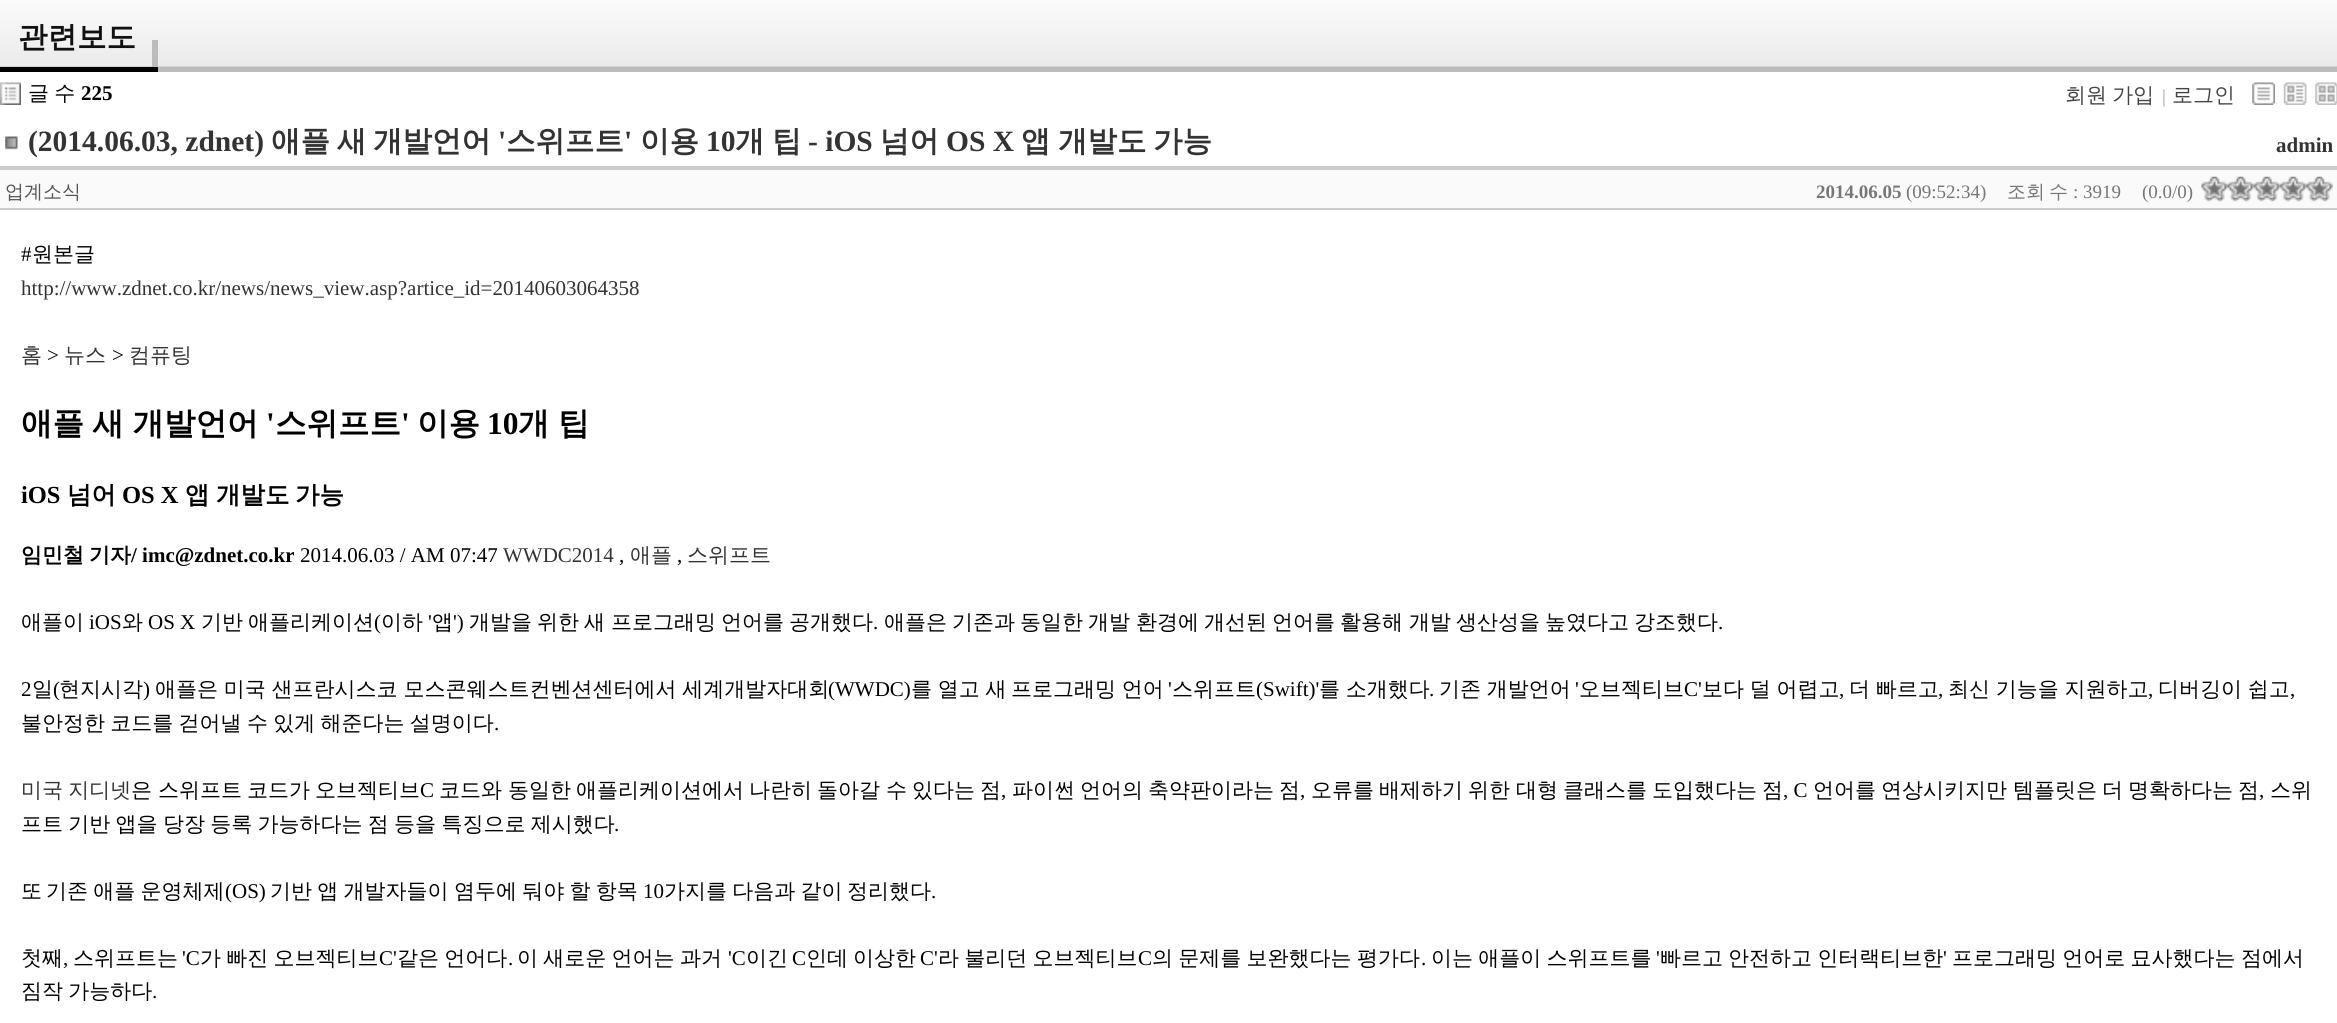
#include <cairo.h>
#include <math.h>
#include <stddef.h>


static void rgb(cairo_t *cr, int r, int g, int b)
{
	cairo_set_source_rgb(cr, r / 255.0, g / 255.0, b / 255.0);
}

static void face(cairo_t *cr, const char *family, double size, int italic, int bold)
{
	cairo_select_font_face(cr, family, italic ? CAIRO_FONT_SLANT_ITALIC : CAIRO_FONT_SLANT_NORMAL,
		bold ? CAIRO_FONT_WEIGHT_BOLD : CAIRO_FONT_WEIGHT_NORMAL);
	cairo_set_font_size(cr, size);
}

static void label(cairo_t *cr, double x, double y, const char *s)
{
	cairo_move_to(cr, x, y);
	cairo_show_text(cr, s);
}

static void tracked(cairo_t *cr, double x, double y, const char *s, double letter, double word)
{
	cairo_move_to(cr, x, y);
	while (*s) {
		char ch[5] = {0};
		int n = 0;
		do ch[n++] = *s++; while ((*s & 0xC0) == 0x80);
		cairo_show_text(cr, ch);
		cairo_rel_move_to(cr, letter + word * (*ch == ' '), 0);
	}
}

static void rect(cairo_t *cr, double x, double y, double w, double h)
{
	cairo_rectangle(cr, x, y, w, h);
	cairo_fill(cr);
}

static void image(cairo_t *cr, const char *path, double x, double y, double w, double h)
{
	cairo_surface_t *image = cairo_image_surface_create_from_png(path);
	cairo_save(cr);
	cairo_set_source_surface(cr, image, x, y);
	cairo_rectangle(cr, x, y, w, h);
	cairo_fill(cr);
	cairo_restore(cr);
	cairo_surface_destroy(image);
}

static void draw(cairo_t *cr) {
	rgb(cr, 255, 255, 255);
	cairo_paint(cr);
	rgb(cr, 187, 187, 187);
	rect(cr, 0, 0, 2337, 72);
	image(cr, "image0.png", 0, 0, 2337, 67);
	rect(cr, 152, 40, 6, 27);
	rgb(cr, 0, 0, 0);
	rect(cr, 0, 67, 158, 5);
	face(cr, "WenQuanYi Zen Hei", 29.5, 0, 1);
	rgb(cr, 17, 17, 17);
	label(cr, 18, 47, "관련보도");
	image(cr, "image1.png", 0, 82, 21, 23);
	face(cr, "WenQuanYi Zen Hei Medium", 21, 0, 0);
	rgb(cr, 0, 0, 0);
	tracked(cr, 28, 100, "글 수", 0, -1);
	face(cr, "Liberation Serif", 21, 0, 1);
	label(cr, 81, 100, "225");
	face(cr, "WenQuanYi Zen Hei Medium", 21, 0, 0);
	rgb(cr, 68, 68, 68);
	tracked(cr, 2065, 102, "회원 가입", 0, -1);
	image(cr, "image2.png", 2163, 89, 2, 18);
	label(cr, 2172, 102, "로그인");
	image(cr, "image3.png", 2252, 82, 23, 23);
	image(cr, "image4.png", 2283, 82, 24, 23);
	image(cr, "image5.png", 2315, 82, 22, 23);
	image(cr, "image6.png", 0, 116, 2337, 50);
	rgb(cr, 204, 204, 204);
	rect(cr, 0, 166, 2337, 4);
	image(cr, "image7.png", 5, 136, 13, 14);
	face(cr, "Liberation Serif", 29.5, 0, 1);
	rgb(cr, 51, 51, 51);
	label(cr, 28, 151, "(2014.06.03, zdnet)");
	face(cr, "WenQuanYi Zen Hei", 29.5, 0, 1);
	label(cr, 271, 151, "애플");
	label(cr, 337, 151, "새");
	label(cr, 373, 151, "개발언어");
	face(cr, "Liberation Serif", 29.5, 0, 1);
	label(cr, 498, 151, "'");
	face(cr, "WenQuanYi Zen Hei", 29.5, 0, 1);
	label(cr, 506, 151, "스위프트");
	face(cr, "Liberation Serif", 29.5, 0, 1);
	label(cr, 624, 151, "'");
	face(cr, "WenQuanYi Zen Hei", 29.5, 0, 1);
	label(cr, 640, 151, "이용");
	face(cr, "Liberation Serif", 29.5, 0, 1);
	label(cr, 706, 151, "10");
	face(cr, "WenQuanYi Zen Hei", 29.5, 0, 1);
	label(cr, 735, 151, "개");
	label(cr, 772, 151, "팁");
	face(cr, "Liberation Serif", 29.5, 0, 1);
	label(cr, 808, 151, "- iOS");
	face(cr, "WenQuanYi Zen Hei", 29.5, 0, 1);
	label(cr, 880, 151, "넘어");
	face(cr, "Liberation Serif", 29.5, 0, 1);
	label(cr, 946, 151, "OS X");
	face(cr, "WenQuanYi Zen Hei", 29.5, 0, 1);
	label(cr, 1021, 151, "앱");
	label(cr, 1058, 151, "개발도");
	label(cr, 1153, 151, "가능");
	face(cr, "Liberation Serif", 21, 0, 1);
	label(cr, 2276, 152, "admin");
	rgb(cr, 250, 250, 250);
	rect(cr, 0, 170, 2337, 38);
	face(cr, "WenQuanYi Zen Hei Medium", 19, 0, 0);
	rgb(cr, 85, 85, 85);
	label(cr, 5, 198, "업계소식");
	face(cr, "Liberation Serif", 19, 0, 1);
	rgb(cr, 119, 119, 119);
	label(cr, 1816, 198, "2014.06.05");
	face(cr, "Liberation Serif", 19, 0, 0);
	label(cr, 1906, 198, "(09:52:34)");
	face(cr, "WenQuanYi Zen Hei Medium", 19, 0, 0);
	label(cr, 2007, 198, "조회");
	label(cr, 2049, 198, "수");
	face(cr, "Liberation Serif", 19, 0, 0);
	label(cr, 2073, 198, ": 3919");
	label(cr, 2142, 198, "(0.0/0)");
	image(cr, "image8.png", 2201, 176, 132, 26);
	rgb(cr, 204, 204, 204);
	rect(cr, 0, 208, 2337, 2);
	face(cr, "Liberation Serif", 21, 0, 0);
	rgb(cr, 0, 0, 0);
	label(cr, 21, 261, "#");
	face(cr, "WenQuanYi Zen Hei Medium", 21, 0, 0);
	label(cr, 32, 261, "원본글");
	face(cr, "Liberation Serif", 21, 0, 0);
	rgb(cr, 51, 51, 51);
	label(cr, 21, 295, "http://www.zdnet.co.kr/news/news_view.asp?artice_id=20140603064358");
	face(cr, "WenQuanYi Zen Hei Medium", 21, 0, 0);
	label(cr, 21, 362, "홈");
	face(cr, "Liberation Serif", 21, 0, 0);
	rgb(cr, 0, 0, 0);
	label(cr, 47, 362, ">");
	face(cr, "WenQuanYi Zen Hei Medium", 21, 0, 0);
	rgb(cr, 51, 51, 51);
	label(cr, 64, 362, "뉴스");
	face(cr, "Liberation Serif", 21, 0, 0);
	rgb(cr, 0, 0, 0);
	label(cr, 112, 362, ">");
	face(cr, "WenQuanYi Zen Hei Medium", 21, 0, 0);
	rgb(cr, 51, 51, 51);
	label(cr, 129, 362, "컴퓨팅");
	face(cr, "WenQuanYi Zen Hei", 31.5, 0, 1);
	rgb(cr, 0, 0, 0);
	tracked(cr, 21, 434, "애플 새 개발언어", 0, -1);
	face(cr, "Liberation Serif", 31.5, 0, 1);
	label(cr, 266, 434, "'");
	face(cr, "WenQuanYi Zen Hei", 31.5, 0, 1);
	label(cr, 275, 434, "스위프트");
	face(cr, "Liberation Serif", 31.5, 0, 1);
	label(cr, 401, 434, "'");
	face(cr, "WenQuanYi Zen Hei", 31.5, 0, 1);
	label(cr, 417, 434, "이용");
	face(cr, "Liberation Serif", 31.5, 0, 1);
	label(cr, 487, 434, "10");
	face(cr, "WenQuanYi Zen Hei", 31.5, 0, 1);
	tracked(cr, 518, 434, "개 팁", 0, -1);
	face(cr, "Liberation Serif", 24.5, 0, 1);
	label(cr, 21, 503, "iOS");
	face(cr, "WenQuanYi Zen Hei", 24.5, 0, 1);
	label(cr, 67, 503, "넘어");
	face(cr, "Liberation Serif", 24.5, 0, 1);
	label(cr, 122, 503, "OS X");
	face(cr, "WenQuanYi Zen Hei", 24.5, 0, 1);
	label(cr, 185, 503, "앱");
	label(cr, 216, 503, "개발도");
	label(cr, 295, 503, "가능");
	face(cr, "WenQuanYi Zen Hei", 21, 0, 1);
	label(cr, 21, 562, "임민철");
	label(cr, 89, 562, "기자");
	face(cr, "Liberation Serif", 21, 0, 1);
	label(cr, 131, 562, "/ imc@zdnet.co.kr");
	face(cr, "Liberation Serif", 21, 0, 0);
	label(cr, 300, 562, "2014.06.03 / AM 07:47");
	rgb(cr, 51, 51, 51);
	label(cr, 503, 562, "WWDC2014");
	rgb(cr, 0, 0, 0);
	label(cr, 619, 562, ",");
	face(cr, "WenQuanYi Zen Hei Medium", 21, 0, 0);
	rgb(cr, 51, 51, 51);
	label(cr, 630, 562, "애플");
	face(cr, "Liberation Serif", 21, 0, 0);
	rgb(cr, 0, 0, 0);
	label(cr, 677, 562, ",");
	face(cr, "WenQuanYi Zen Hei Medium", 21, 0, 0);
	rgb(cr, 51, 51, 51);
	label(cr, 687, 562, "스위프트");
	rgb(cr, 0, 0, 0);
	label(cr, 21, 629, "애플이");
	face(cr, "Liberation Serif", 21, 0, 0);
	label(cr, 89, 629, "iOS");
	face(cr, "WenQuanYi Zen Hei Medium", 21, 0, 0);
	label(cr, 122, 629, "와");
	face(cr, "Liberation Serif", 21, 0, 0);
	label(cr, 148, 629, "OS X");
	face(cr, "WenQuanYi Zen Hei Medium", 21, 0, 0);
	label(cr, 201, 629, "기반");
	label(cr, 248, 629, "애플리케이션");
	face(cr, "Liberation Serif", 21, 0, 0);
	label(cr, 374, 629, "(");
	face(cr, "WenQuanYi Zen Hei Medium", 21, 0, 0);
	label(cr, 381, 629, "이하");
	face(cr, "Liberation Serif", 21, 0, 0);
	label(cr, 428, 629, "'");
	face(cr, "WenQuanYi Zen Hei Medium", 21, 0, 0);
	label(cr, 432, 629, "앱");
	face(cr, "Liberation Serif", 21, 0, 0);
	label(cr, 453, 629, "')");
	face(cr, "WenQuanYi Zen Hei Medium", 21, 0, 0);
	label(cr, 469, 629, "개발을");
	label(cr, 537, 629, "위한");
	label(cr, 584, 629, "새");
	label(cr, 611, 629, "프로그래밍");
	label(cr, 721, 629, "언어를");
	label(cr, 789, 629, "공개했다");
	label(cr, 884, 629, "애플은");
	label(cr, 952, 629, "기존과");
	label(cr, 1020, 629, "동일한");
	label(cr, 1088, 629, "개발");
	label(cr, 1136, 629, "환경에");
	label(cr, 1204, 629, "개선된");
	label(cr, 1272, 629, "언어를");
	label(cr, 1340, 629, "활용해");
	label(cr, 1409, 629, "개발");
	label(cr, 1456, 629, "생산성을");
	label(cr, 1545, 629, "높였다고");
	label(cr, 1634, 629, "강조했다");
	face(cr, "Liberation Serif", 21, 0, 0);
	label(cr, 873, 629, ".");
	label(cr, 1718, 629, ".");
	label(cr, 21, 696, "2");
	face(cr, "WenQuanYi Zen Hei Medium", 21, 0, 0);
	label(cr, 32, 696, "일");
	face(cr, "Liberation Serif", 21, 0, 0);
	label(cr, 53, 696, "(");
	face(cr, "WenQuanYi Zen Hei Medium", 21, 0, 0);
	label(cr, 59, 696, "현지시각");
	face(cr, "Liberation Serif", 21, 0, 0);
	label(cr, 143, 696, ")");
	face(cr, "WenQuanYi Zen Hei Medium", 21, 0, 0);
	tracked(cr, 155, 696, "애플은 미국 샌프란시스코 모스콘웨스트컨벤션센터에서 세계개발자대회", 0, -0.5);
	face(cr, "Liberation Serif", 21, 0, 0);
	label(cr, 828, 696, "(WWDC)");
	face(cr, "WenQuanYi Zen Hei Medium", 21, 0, 0);
	tracked(cr, 911, 696, "를 열고 새", 0, -0.5);
	tracked(cr, 1011, 696, "프로그래밍 언어", 0, -0.5);
	face(cr, "Liberation Serif", 21, 0, 0);
	label(cr, 1168, 696, "'");
	face(cr, "WenQuanYi Zen Hei Medium", 21, 0, 0);
	label(cr, 1172, 696, "스위프트");
	face(cr, "Liberation Serif", 21, 0, 0);
	label(cr, 1256, 696, "(Swift)'");
	face(cr, "WenQuanYi Zen Hei Medium", 21, 0, 0);
	tracked(cr, 1319, 696, "를 소개했다", 0, -0.5);
	face(cr, "Liberation Serif", 21, 0, 0);
	label(cr, 1429, 696, ".");
	face(cr, "WenQuanYi Zen Hei Medium", 21, 0, 0);
	tracked(cr, 1439, 696, "기존 개발언어", 0, -0.5);
	face(cr, "Liberation Serif", 21, 0, 0);
	label(cr, 1575, 696, "'");
	face(cr, "WenQuanYi Zen Hei Medium", 21, 0, 0);
	label(cr, 1579, 696, "오브젝티브");
	face(cr, "Liberation Serif", 21, 0, 0);
	label(cr, 1684, 696, "C'");
	face(cr, "WenQuanYi Zen Hei Medium", 21, 0, 0);
	tracked(cr, 1702, 696, "보다 덜 어렵고", 0, -0.5);
	face(cr, "Liberation Serif", 21, 0, 0);
	label(cr, 1839, 696, ",");
	face(cr, "WenQuanYi Zen Hei Medium", 21, 0, 0);
	tracked(cr, 1849, 696, "더 빠르고", 0, -0.5);
	face(cr, "Liberation Serif", 21, 0, 0);
	label(cr, 1938, 696, ",");
	face(cr, "WenQuanYi Zen Hei Medium", 21, 0, 0);
	tracked(cr, 1948, 696, "최신 기능을 지원하고", 0, -0.5);
	face(cr, "Liberation Serif", 21, 0, 0);
	label(cr, 2148, 696, ",");
	face(cr, "WenQuanYi Zen Hei Medium", 21, 0, 0);
	tracked(cr, 2158, 696, "디버깅이 쉽고", 0, -0.5);
	face(cr, "Liberation Serif", 21, 0, 0);
	label(cr, 2290, 696, ",");
	face(cr, "WenQuanYi Zen Hei Medium", 21, 0, 0);
	tracked(cr, 21, 730, "불안정한 코드를 걷어낼 수 있게 해준다는 설명이다", 0, -1);
	face(cr, "Liberation Serif", 21, 0, 0);
	label(cr, 494, 730, ".");
	face(cr, "WenQuanYi Zen Hei Medium", 21, 0, 0);
	rgb(cr, 51, 51, 51);
	tracked(cr, 21, 797, "미국 지디넷", 0, -1);
	rgb(cr, 0, 0, 0);
	label(cr, 131, 797, "은");
	label(cr, 158, 797, "스위프트");
	label(cr, 247, 797, "코드가");
	label(cr, 315, 797, "오브젝티브");
	face(cr, "Liberation Serif", 21, 0, 0);
	label(cr, 420, 797, "C");
	face(cr, "WenQuanYi Zen Hei Medium", 21, 0, 0);
	label(cr, 439, 797, "코드와");
	label(cr, 508, 797, "동일한");
	label(cr, 576, 797, "애플리케이션에서");
	label(cr, 749, 797, "나란히");
	label(cr, 817, 797, "돌아갈");
	label(cr, 886, 797, "수");
	label(cr, 912, 797, "있다는");
	label(cr, 980, 797, "점");
	face(cr, "Liberation Serif", 21, 0, 0);
	label(cr, 1001, 797, ",");
	face(cr, "WenQuanYi Zen Hei Medium", 21, 0, 0);
	label(cr, 1012, 797, "파이썬");
	label(cr, 1080, 797, "언어의");
	label(cr, 1148, 797, "축약판이라는");
	label(cr, 1279, 797, "점");
	face(cr, "Liberation Serif", 21, 0, 0);
	label(cr, 1300, 797, ",");
	face(cr, "WenQuanYi Zen Hei Medium", 21, 0, 0);
	label(cr, 1311, 797, "오류를");
	label(cr, 1379, 797, "배제하기");
	label(cr, 1468, 797, "위한");
	label(cr, 1516, 797, "대형");
	label(cr, 1563, 797, "클래스를");
	label(cr, 1652, 797, "도입했다는");
	label(cr, 1762, 797, "점");
	face(cr, "Liberation Serif", 21, 0, 0);
	label(cr, 1783, 797, ", C");
	face(cr, "WenQuanYi Zen Hei Medium", 21, 0, 0);
	label(cr, 1813, 797, "언어를");
	label(cr, 1881, 797, "연상시키지만");
	label(cr, 2013, 797, "템플릿은");
	label(cr, 2102, 797, "더");
	label(cr, 2128, 797, "명확하다는");
	label(cr, 2238, 797, "점");
	face(cr, "Liberation Serif", 21, 0, 0);
	label(cr, 2259, 797, ",");
	face(cr, "WenQuanYi Zen Hei Medium", 21, 0, 0);
	label(cr, 2270, 797, "스위");
	tracked(cr, 21, 831, "프트 기반 앱을 당장 등록 가능하다는 점 등을 특징으로 제시했다", 0, -1);
	face(cr, "Liberation Serif", 21, 0, 0);
	label(cr, 614, 831, ".");
	face(cr, "WenQuanYi Zen Hei Medium", 21, 0, 0);
	label(cr, 21, 898, "또");
	tracked(cr, 46, 898, "기존 애플 운영체제", 0, -1);
	face(cr, "Liberation Serif", 21, 0, 0);
	label(cr, 225, 898, "(OS)");
	face(cr, "WenQuanYi Zen Hei Medium", 21, 0, 0);
	tracked(cr, 270, 898, "기반 앱 개발자들이 염두에 둬야 할 항목", 0, -1);
	face(cr, "Liberation Serif", 21, 0, 0);
	label(cr, 643, 898, "10");
	face(cr, "WenQuanYi Zen Hei Medium", 21, 0, 0);
	tracked(cr, 664, 898, "가지를 다음과 같이", 0, -1);
	label(cr, 847, 898, "정리했다");
	face(cr, "Liberation Serif", 21, 0, 0);
	label(cr, 931, 898, ".");
	face(cr, "WenQuanYi Zen Hei Medium", 21, 0, 0);
	label(cr, 21, 965, "첫째");
	label(cr, 73, 965, "스위프트는");
	face(cr, "Liberation Serif", 21, 0, 0);
	label(cr, 182, 965, "'C");
	face(cr, "WenQuanYi Zen Hei Medium", 21, 0, 0);
	tracked(cr, 200, 965, "가 빠진 오브젝티브", 0, -1);
	face(cr, "Liberation Serif", 21, 0, 0);
	label(cr, 379, 965, "C'");
	face(cr, "WenQuanYi Zen Hei Medium", 21, 0, 0);
	tracked(cr, 397, 965, "같은 언어다", 0, -1);
	tracked(cr, 517, 965, "이 새로운 언어는 과거", 0, -1);
	face(cr, "Liberation Serif", 21, 0, 0);
	label(cr, 728, 965, "'C");
	face(cr, "WenQuanYi Zen Hei Medium", 21, 0, 0);
	label(cr, 746, 965, "이긴");
	face(cr, "Liberation Serif", 21, 0, 0);
	label(cr, 792, 965, "C");
	face(cr, "WenQuanYi Zen Hei Medium", 21, 0, 0);
	label(cr, 806, 965, "인데");
	label(cr, 853, 965, "이상한");
	face(cr, "Liberation Serif", 21, 0, 0);
	label(cr, 920, 965, "C'");
	face(cr, "WenQuanYi Zen Hei Medium", 21, 0, 0);
	tracked(cr, 938, 965, "라 불리던 오브젝티브", 0, -1);
	face(cr, "Liberation Serif", 21, 0, 0);
	label(cr, 1138, 965, "C");
	face(cr, "WenQuanYi Zen Hei Medium", 21, 0, 0);
	tracked(cr, 1152, 965, "의 문제를 보완했다는 평가다", 0, -1);
	tracked(cr, 1431, 965, "이는 애플이 스위프트를", 0, -1);
	face(cr, "Liberation Serif", 21, 0, 0);
	label(cr, 1656, 965, "'");
	face(cr, "WenQuanYi Zen Hei Medium", 21, 0, 0);
	label(cr, 1660, 965, "빠르고");
	tracked(cr, 1728, 965, "안전하고 인터랙티브한", 0, -1);
	face(cr, "Liberation Serif", 21, 0, 0);
	label(cr, 1943, 965, "'");
	face(cr, "WenQuanYi Zen Hei Medium", 21, 0, 0);
	tracked(cr, 1952, 965, "프로그래밍 언어로 묘사했다는 점에서", 0, -1);
	face(cr, "Liberation Serif", 21, 0, 0);
	label(cr, 63, 965, ",");
	label(cr, 508, 965, ".");
	label(cr, 1421, 965, ".");
	face(cr, "WenQuanYi Zen Hei Medium", 21, 0, 0);
	tracked(cr, 21, 998, "짐작 가능하다", 0, -1);
	face(cr, "Liberation Serif", 21, 0, 0);
	label(cr, 152, 998, ".");
}

int main(void) {
	cairo_surface_t *surface = cairo_image_surface_create(CAIRO_FORMAT_RGB24, 2337, 1023);
	cairo_t *cr = cairo_create(surface);
	cairo_font_options_t *options = cairo_font_options_create();
	cairo_font_options_set_hint_metrics(options, CAIRO_HINT_METRICS_OFF);
	cairo_font_options_set_hint_style(options, CAIRO_HINT_STYLE_NONE);
	cairo_set_font_options(cr, options);
	cairo_set_miter_limit(cr, 4);
	draw(cr);
	cairo_surface_write_to_png(surface, "render.png");
	cairo_font_options_destroy(options);
	cairo_destroy(cr);
	cairo_surface_destroy(surface);
	return 0;
}
